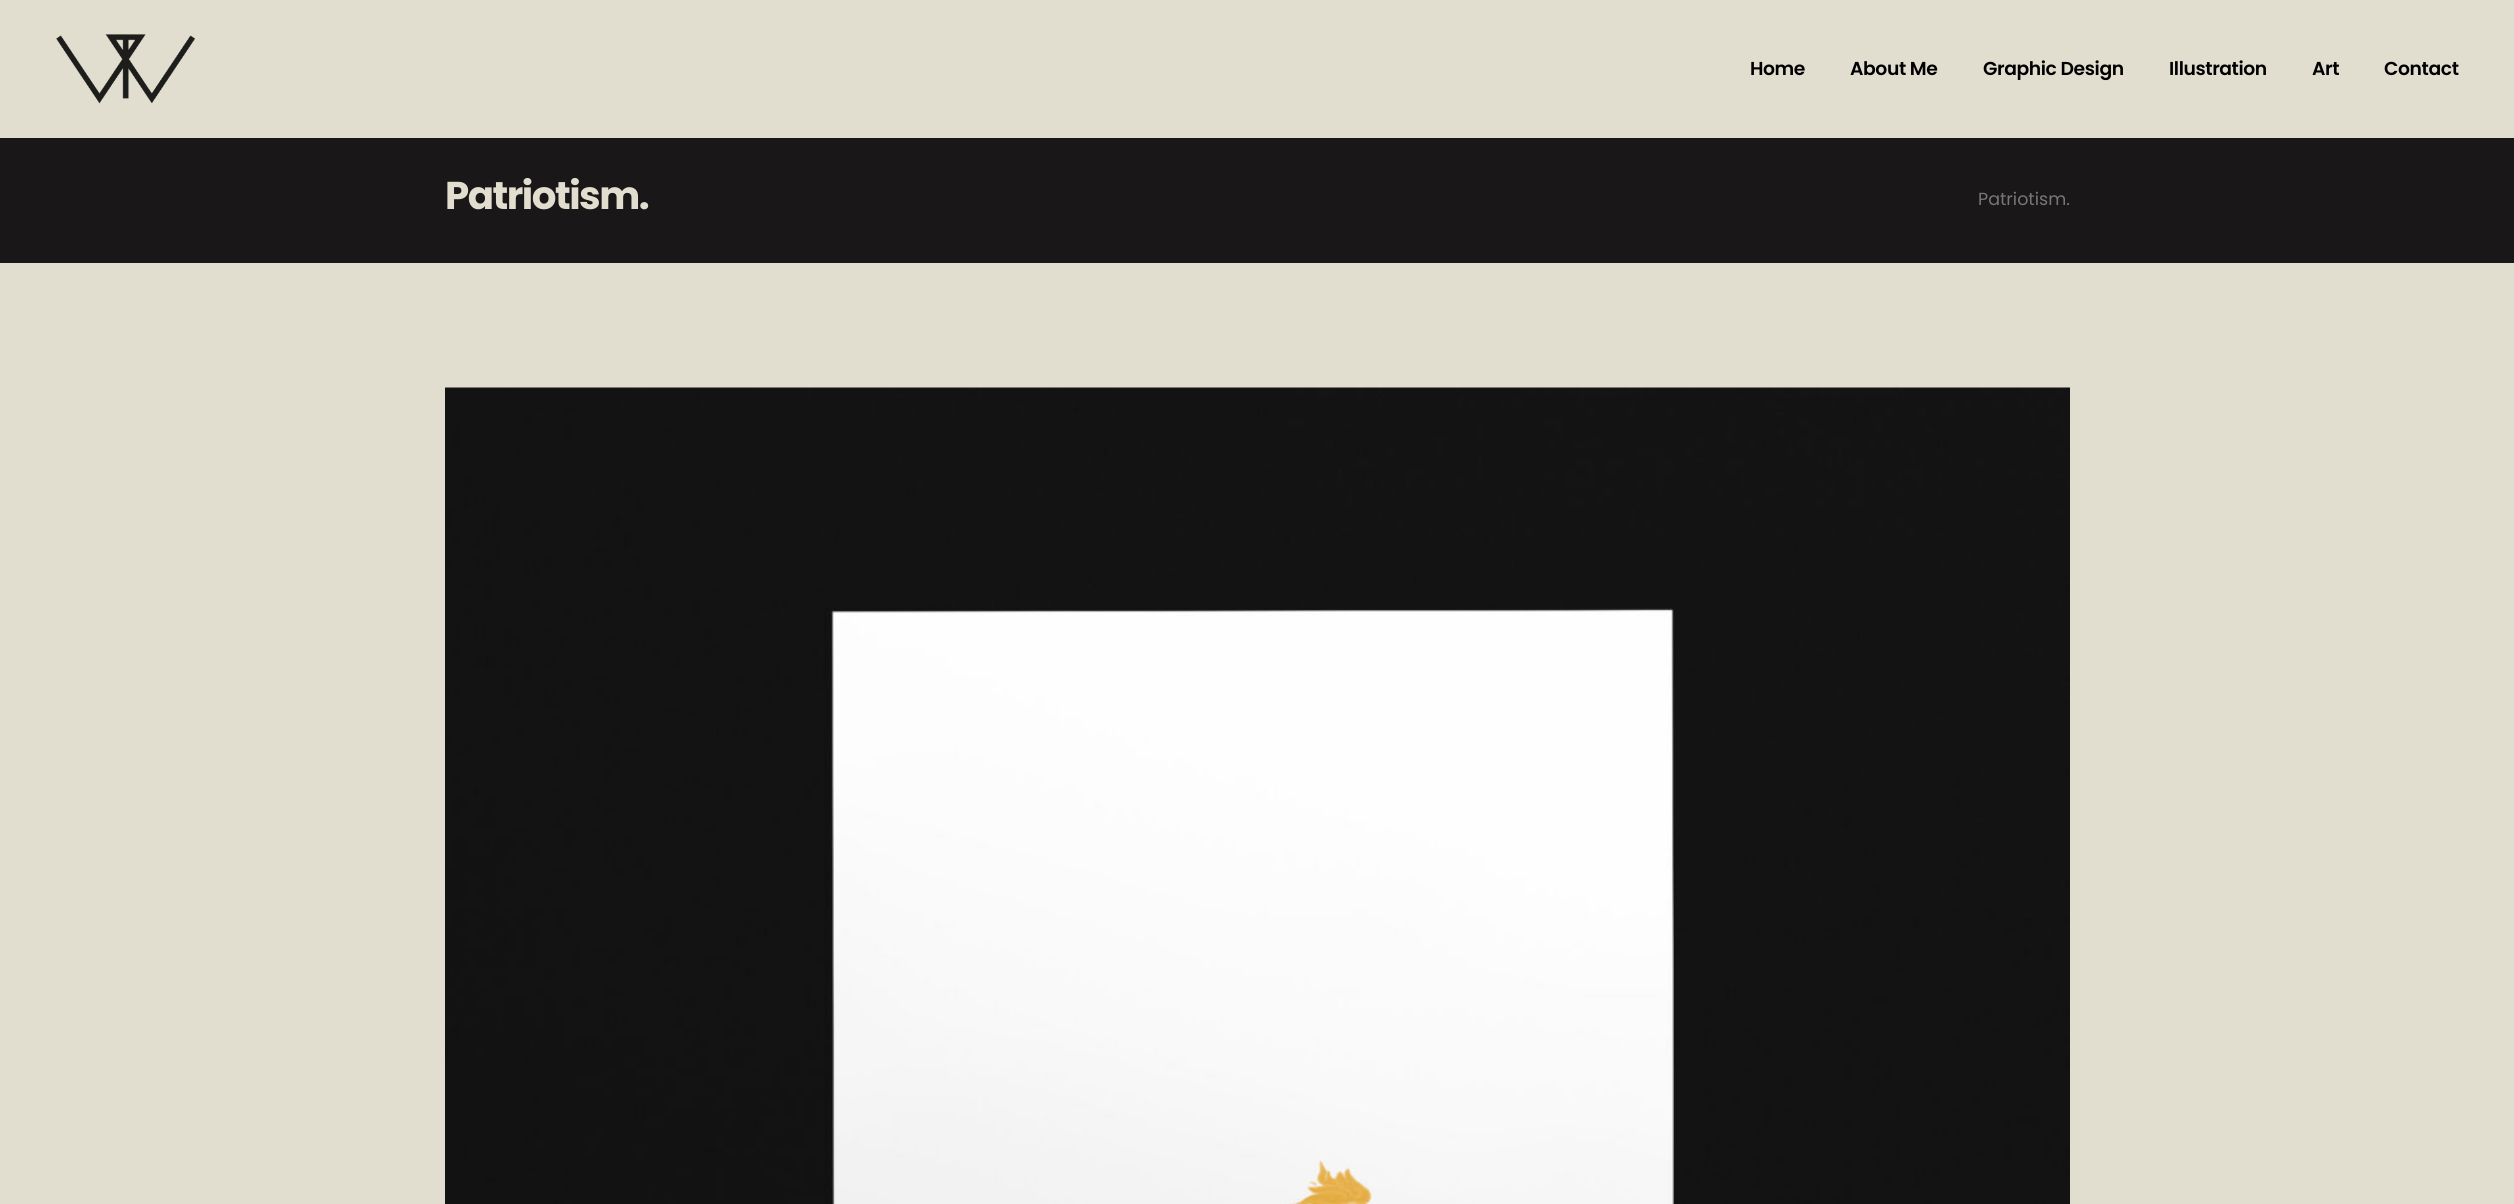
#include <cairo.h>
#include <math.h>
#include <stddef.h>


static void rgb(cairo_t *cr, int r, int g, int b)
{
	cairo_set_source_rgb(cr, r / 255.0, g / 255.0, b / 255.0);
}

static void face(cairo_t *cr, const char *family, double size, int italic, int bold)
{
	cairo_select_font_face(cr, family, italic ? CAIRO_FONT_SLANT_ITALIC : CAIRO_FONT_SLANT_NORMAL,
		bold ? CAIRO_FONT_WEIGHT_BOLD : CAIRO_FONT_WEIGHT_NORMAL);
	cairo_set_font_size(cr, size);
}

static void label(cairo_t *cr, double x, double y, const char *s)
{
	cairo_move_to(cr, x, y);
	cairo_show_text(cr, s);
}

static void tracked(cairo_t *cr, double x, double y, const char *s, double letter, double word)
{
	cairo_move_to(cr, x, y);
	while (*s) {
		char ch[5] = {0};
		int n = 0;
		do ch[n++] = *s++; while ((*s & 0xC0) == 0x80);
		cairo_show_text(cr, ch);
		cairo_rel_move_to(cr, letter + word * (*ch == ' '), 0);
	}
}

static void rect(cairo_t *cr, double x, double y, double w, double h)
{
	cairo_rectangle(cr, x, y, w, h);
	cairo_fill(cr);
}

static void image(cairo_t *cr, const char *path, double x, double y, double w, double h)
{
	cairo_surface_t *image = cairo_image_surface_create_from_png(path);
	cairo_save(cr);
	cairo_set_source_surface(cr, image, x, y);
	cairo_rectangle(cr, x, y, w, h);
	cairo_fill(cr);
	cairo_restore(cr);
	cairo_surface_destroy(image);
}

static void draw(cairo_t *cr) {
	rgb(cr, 226, 222, 207);
	cairo_paint(cr);
	image(cr, "image0.png", 56, 34, 139, 70);
	face(cr, "Poppins SemiBold", 18.75, 0, 0);
	rgb(cr, 0, 0, 0);
	tracked(cr, 1750, 75, "Home", -0.4, 0);
	tracked(cr, 1850, 75, "About Me", -0.4, 0);
	tracked(cr, 1983, 75, "Graphic Design", -0.4, 0);
	tracked(cr, 2169, 75, "Illustration", -0.4, 0);
	tracked(cr, 2312, 75, "Art", -0.4, 0);
	tracked(cr, 2384, 75, "Contact", -0.4, 0);
	rgb(cr, 25, 23, 23);
	rect(cr, 0, 138, 2514, 125);
	face(cr, "Poppins", 38.75, 0, 1);
	rgb(cr, 226, 222, 207);
	tracked(cr, 445, 209, "Patriotism.", -1.5, 0);
	face(cr, "Poppins", 17.5, 0, 0);
	rgb(cr, 119, 119, 119);
	label(cr, 1978, 205, "Patriotism.");
	image(cr, "image1.png", 445, 387, 1625, 817);
}

int main(void) {
	cairo_surface_t *surface = cairo_image_surface_create(CAIRO_FORMAT_RGB24, 2514, 1204);
	cairo_t *cr = cairo_create(surface);
	cairo_font_options_t *options = cairo_font_options_create();
	cairo_font_options_set_hint_metrics(options, CAIRO_HINT_METRICS_OFF);
	cairo_font_options_set_hint_style(options, CAIRO_HINT_STYLE_NONE);
	cairo_set_font_options(cr, options);
	cairo_set_miter_limit(cr, 4);
	draw(cr);
	cairo_surface_write_to_png(surface, "render.png");
	cairo_font_options_destroy(options);
	cairo_destroy(cr);
	cairo_surface_destroy(surface);
	return 0;
}
